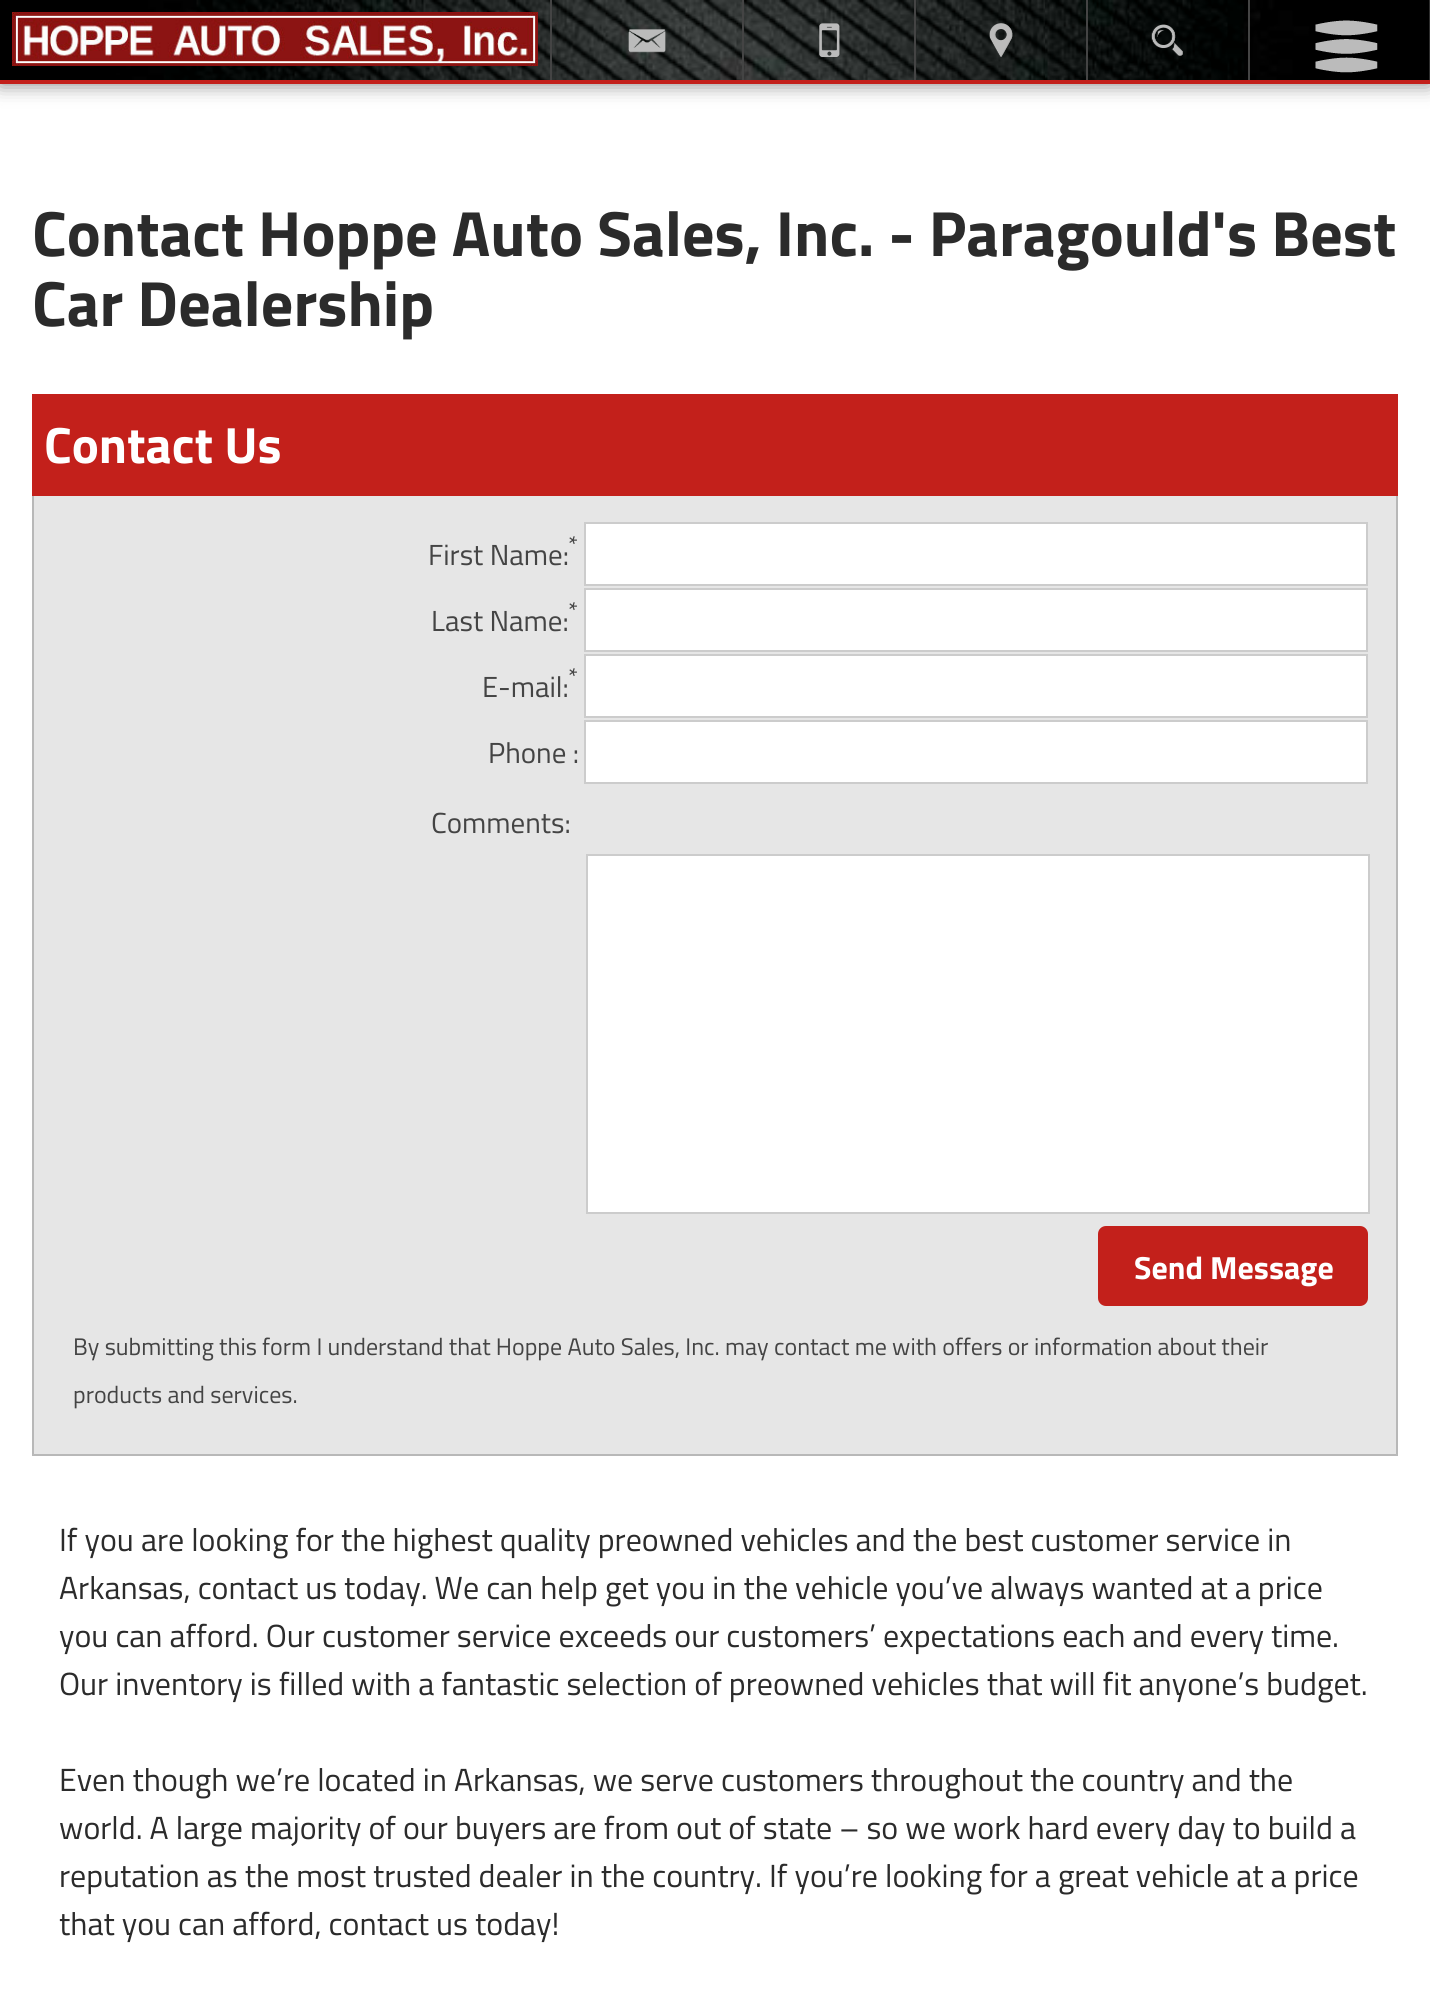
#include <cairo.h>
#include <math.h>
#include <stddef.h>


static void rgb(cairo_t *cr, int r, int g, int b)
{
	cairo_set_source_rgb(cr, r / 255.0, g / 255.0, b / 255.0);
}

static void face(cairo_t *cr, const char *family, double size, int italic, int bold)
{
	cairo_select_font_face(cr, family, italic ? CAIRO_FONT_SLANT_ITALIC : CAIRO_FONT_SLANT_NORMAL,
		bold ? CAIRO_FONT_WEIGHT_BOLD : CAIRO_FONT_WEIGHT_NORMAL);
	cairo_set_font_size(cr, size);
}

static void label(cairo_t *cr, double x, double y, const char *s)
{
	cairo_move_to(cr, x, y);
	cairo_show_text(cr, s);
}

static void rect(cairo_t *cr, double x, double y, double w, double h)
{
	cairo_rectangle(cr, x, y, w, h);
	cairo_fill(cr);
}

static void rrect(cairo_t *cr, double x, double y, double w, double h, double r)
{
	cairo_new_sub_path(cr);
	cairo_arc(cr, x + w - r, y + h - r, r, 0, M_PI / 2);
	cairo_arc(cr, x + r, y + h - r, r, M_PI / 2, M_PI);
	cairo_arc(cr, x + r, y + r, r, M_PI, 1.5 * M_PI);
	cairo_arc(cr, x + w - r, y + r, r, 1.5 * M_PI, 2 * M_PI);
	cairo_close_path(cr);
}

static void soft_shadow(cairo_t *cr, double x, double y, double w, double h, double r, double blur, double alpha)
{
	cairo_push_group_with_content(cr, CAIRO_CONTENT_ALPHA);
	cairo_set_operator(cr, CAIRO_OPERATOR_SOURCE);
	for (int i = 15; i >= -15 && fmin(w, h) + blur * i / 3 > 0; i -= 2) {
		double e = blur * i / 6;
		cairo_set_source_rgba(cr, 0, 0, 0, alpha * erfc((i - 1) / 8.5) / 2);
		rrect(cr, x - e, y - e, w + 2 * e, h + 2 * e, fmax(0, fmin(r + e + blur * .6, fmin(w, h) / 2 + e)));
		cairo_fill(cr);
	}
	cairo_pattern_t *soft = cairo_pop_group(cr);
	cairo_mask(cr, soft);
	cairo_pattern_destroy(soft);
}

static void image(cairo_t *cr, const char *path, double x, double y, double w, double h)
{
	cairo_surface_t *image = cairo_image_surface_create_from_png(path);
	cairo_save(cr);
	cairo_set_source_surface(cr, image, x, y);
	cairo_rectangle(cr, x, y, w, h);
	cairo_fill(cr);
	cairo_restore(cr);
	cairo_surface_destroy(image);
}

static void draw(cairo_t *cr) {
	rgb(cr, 255, 255, 255);
	cairo_paint(cr);
	rgb(cr, 0, 0, 0);
	soft_shadow(cr, 0, 0, 1430, 84, 0, 10, 0.5);
	image(cr, "image0.png", 0, 0, 1430, 80);
	rgb(cr, 195, 32, 27);
	rect(cr, 0, 80, 1430, 4);
	image(cr, "image1.png", 12, 12, 526, 54);
	rgb(cr, 68, 68, 68);
	rect(cr, 742, 0, 2, 80);
	rect(cr, 550, 0, 2, 80);
	image(cr, "image2.png", 628, 29, 38, 24);
	rect(cr, 914, 0, 2, 80);
	image(cr, "image3.png", 819, 23, 21, 34);
	rect(cr, 1086, 0, 2, 80);
	image(cr, "image4.png", 989, 23, 24, 34);
	rect(cr, 1248, 0, 2, 80);
	image(cr, "image5.png", 1151, 24, 32, 32);
	image(cr, "image6.png", 1315, 20, 63, 53);
	face(cr, "Titillium Web", 64, 0, 1);
	rgb(cr, 43, 43, 43);
	label(cr, 32, 256, "Contact Hoppe Auto Sales, Inc. - Paragould's Best");
	label(cr, 32, 326, "Car Dealership");
	rgb(cr, 195, 32, 27);
	rect(cr, 32, 394, 1366, 102);
	face(cr, "Titillium Web", 51, 0, 1);
	rgb(cr, 255, 255, 255);
	label(cr, 44, 463, "Contact Us");
	rgb(cr, 230, 230, 230);
	rect(cr, 32, 496, 1366, 960);
	rgb(cr, 184, 184, 184);
	cairo_new_path(cr);
	cairo_move_to(cr, 1398, 496);
	cairo_line_to(cr, 1398, 1456);
	cairo_line_to(cr, 1396, 1454);
	cairo_line_to(cr, 1396, 496);
	cairo_close_path(cr);
	cairo_fill(cr);
	cairo_set_source_rgba(cr, 0, 0, 0, 0.2);
	cairo_new_path(cr);
	cairo_move_to(cr, 1398, 1456);
	cairo_line_to(cr, 32, 1456);
	cairo_line_to(cr, 34, 1454);
	cairo_line_to(cr, 1396, 1454);
	cairo_close_path(cr);
	cairo_fill(cr);
	cairo_new_path(cr);
	cairo_move_to(cr, 32, 1456);
	cairo_line_to(cr, 32, 496);
	cairo_line_to(cr, 34, 496);
	cairo_line_to(cr, 34, 1454);
	cairo_close_path(cr);
	cairo_fill(cr);
	face(cr, "Titillium Web", 24, 0, 0);
	rgb(cr, 68, 68, 68);
	label(cr, 568, 553, "*");
	rgb(cr, 255, 255, 255);
	cairo_rectangle(cr, 585, 523, 782, 62);
	cairo_fill_preserve(cr);
	rgb(cr, 204, 204, 204);
	cairo_stroke(cr);
	face(cr, "Titillium Web", 29, 0, 0);
	rgb(cr, 68, 68, 68);
	label(cr, 428, 565, "First Name:");
	face(cr, "Titillium Web", 24, 0, 0);
	label(cr, 568, 619, "*");
	rgb(cr, 255, 255, 255);
	cairo_rectangle(cr, 585, 589, 782, 62);
	cairo_fill_preserve(cr);
	rgb(cr, 204, 204, 204);
	cairo_stroke(cr);
	face(cr, "Titillium Web", 29, 0, 0);
	rgb(cr, 68, 68, 68);
	label(cr, 431, 631, "Last Name:");
	face(cr, "Titillium Web", 24, 0, 0);
	label(cr, 568, 685, "*");
	rgb(cr, 255, 255, 255);
	cairo_rectangle(cr, 585, 655, 782, 62);
	cairo_fill_preserve(cr);
	rgb(cr, 204, 204, 204);
	cairo_stroke(cr);
	face(cr, "Titillium Web", 29, 0, 0);
	rgb(cr, 68, 68, 68);
	label(cr, 482, 697, "E-mail:");
	label(cr, 488, 763, "Phone :");
	rgb(cr, 255, 255, 255);
	cairo_rectangle(cr, 585, 721, 782, 62);
	cairo_fill_preserve(cr);
	rgb(cr, 204, 204, 204);
	cairo_stroke(cr);
	rgb(cr, 68, 68, 68);
	label(cr, 431, 833, "Comments:");
	rgb(cr, 255, 255, 255);
	cairo_rectangle(cr, 587, 855, 782, 358);
	cairo_fill_preserve(cr);
	rgb(cr, 204, 204, 204);
	cairo_stroke(cr);
	rgb(cr, 195, 32, 27);
	rrect(cr, 1098, 1226, 270, 80, 8);
	cairo_fill(cr);
	face(cr, "Titillium Web", 32, 0, 1);
	rgb(cr, 255, 255, 255);
	label(cr, 1134, 1279, "Send Message");
	face(cr, "Titillium Web", 24, 0, 0);
	rgb(cr, 68, 68, 68);
	label(cr, 73, 1355, "By submitting this form I understand that Hoppe Auto Sales, Inc. may contact me with offers or information about their");
	label(cr, 73, 1403, "products and services.");
	face(cr, "Titillium Web", 32, 0, 0);
	rgb(cr, 43, 43, 43);
	label(cr, 59, 1551, "If you are looking for the highest quality preowned vehicles and the best customer service in");
	label(cr, 59, 1599, "Arkansas, contact us today. We can help get you in the vehicle you’ve always wanted at a price");
	label(cr, 59, 1647, "you can afford. Our customer service exceeds our customers’ expectations each and every time.");
	label(cr, 59, 1695, "Our inventory is filled with a fantastic selection of preowned vehicles that will fit anyone’s budget.");
	label(cr, 59, 1791, "Even though we’re located in Arkansas, we serve customers throughout the country and the");
	label(cr, 59, 1839, "world. A large majority of our buyers are from out of state – so we work hard every day to build a");
	label(cr, 59, 1887, "reputation as the most trusted dealer in the country. If you’re looking for a great vehicle at a price");
	label(cr, 59, 1935, "that you can afford, contact us today!");
}

int main(void) {
	cairo_surface_t *surface = cairo_image_surface_create(CAIRO_FORMAT_RGB24, 1430, 2001);
	cairo_t *cr = cairo_create(surface);
	cairo_font_options_t *options = cairo_font_options_create();
	cairo_font_options_set_hint_metrics(options, CAIRO_HINT_METRICS_OFF);
	cairo_font_options_set_hint_style(options, CAIRO_HINT_STYLE_NONE);
	cairo_set_font_options(cr, options);
	cairo_set_miter_limit(cr, 4);
	draw(cr);
	cairo_surface_write_to_png(surface, "render.png");
	cairo_font_options_destroy(options);
	cairo_destroy(cr);
	cairo_surface_destroy(surface);
	return 0;
}
